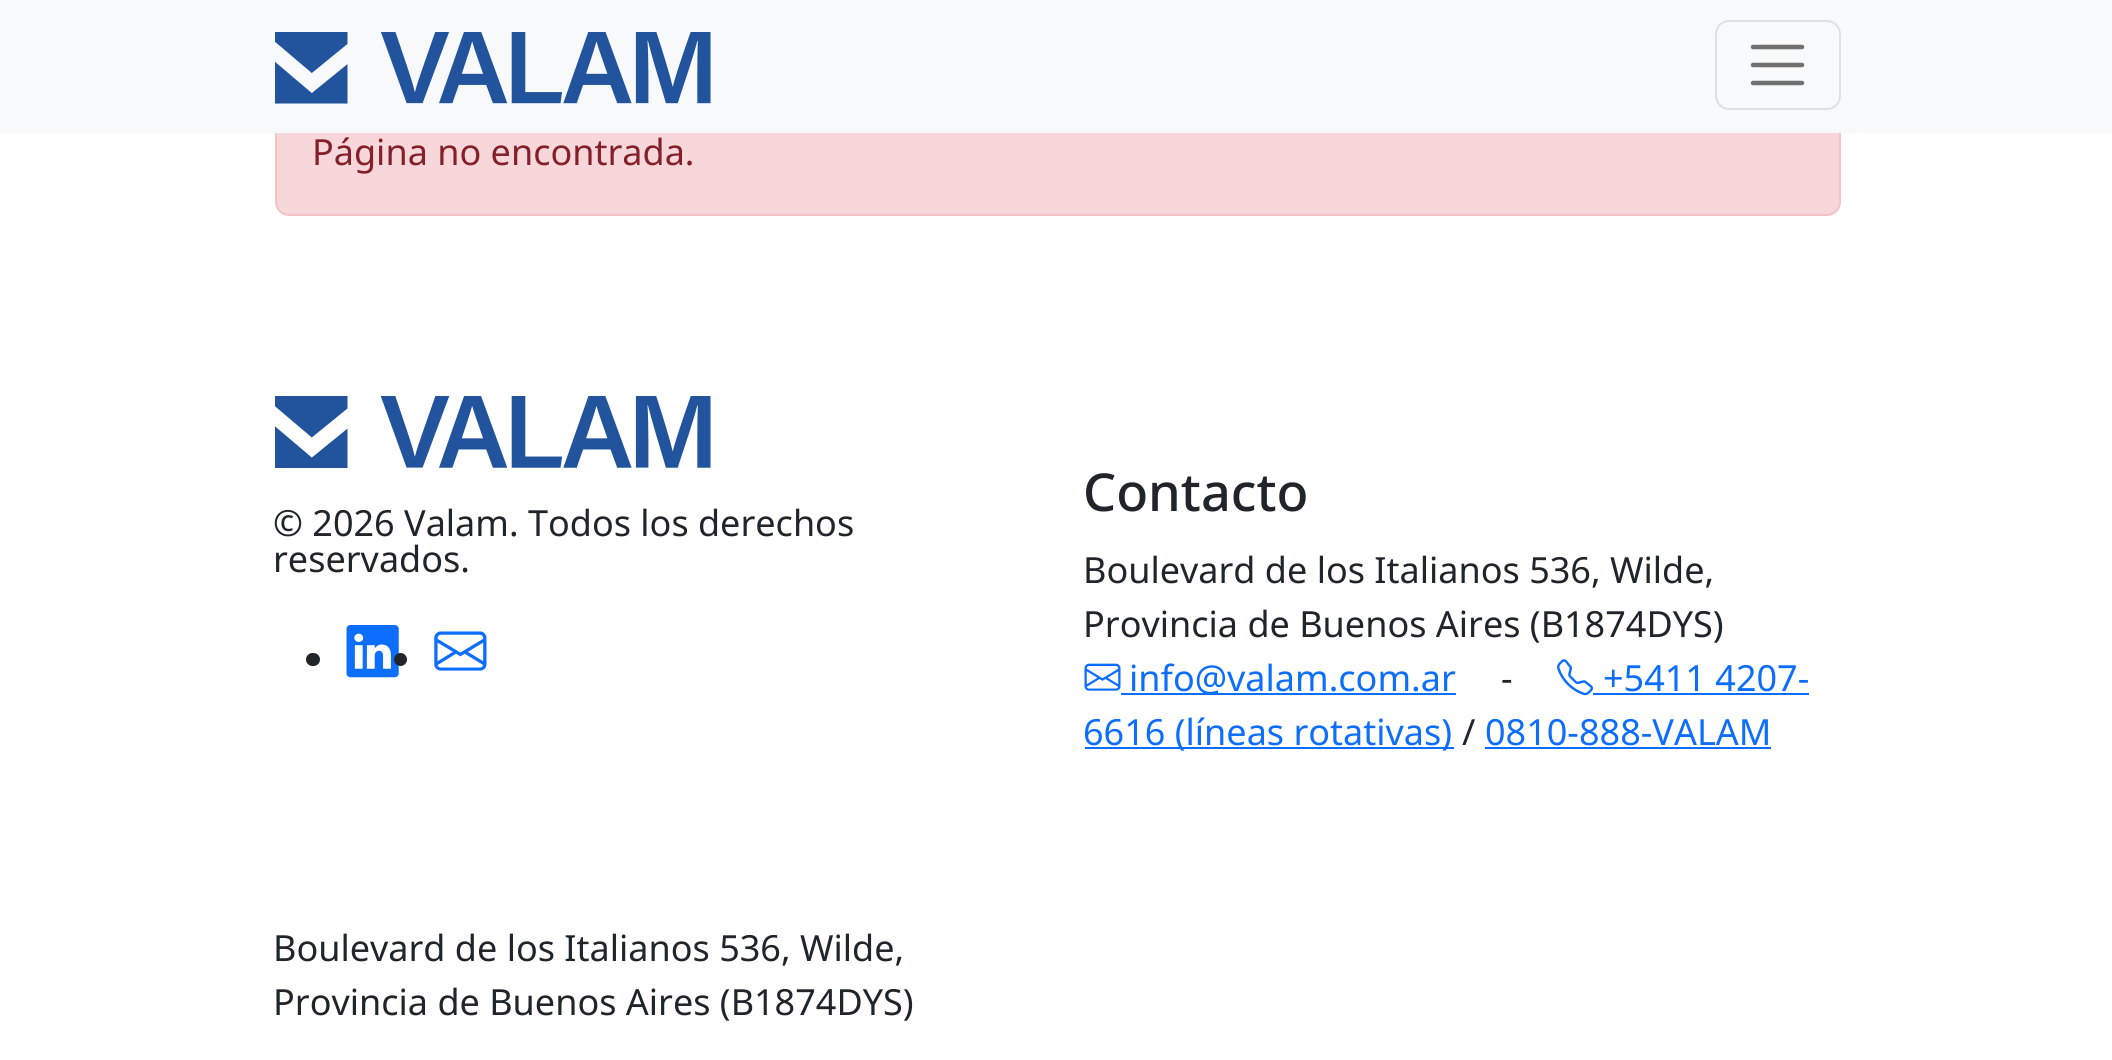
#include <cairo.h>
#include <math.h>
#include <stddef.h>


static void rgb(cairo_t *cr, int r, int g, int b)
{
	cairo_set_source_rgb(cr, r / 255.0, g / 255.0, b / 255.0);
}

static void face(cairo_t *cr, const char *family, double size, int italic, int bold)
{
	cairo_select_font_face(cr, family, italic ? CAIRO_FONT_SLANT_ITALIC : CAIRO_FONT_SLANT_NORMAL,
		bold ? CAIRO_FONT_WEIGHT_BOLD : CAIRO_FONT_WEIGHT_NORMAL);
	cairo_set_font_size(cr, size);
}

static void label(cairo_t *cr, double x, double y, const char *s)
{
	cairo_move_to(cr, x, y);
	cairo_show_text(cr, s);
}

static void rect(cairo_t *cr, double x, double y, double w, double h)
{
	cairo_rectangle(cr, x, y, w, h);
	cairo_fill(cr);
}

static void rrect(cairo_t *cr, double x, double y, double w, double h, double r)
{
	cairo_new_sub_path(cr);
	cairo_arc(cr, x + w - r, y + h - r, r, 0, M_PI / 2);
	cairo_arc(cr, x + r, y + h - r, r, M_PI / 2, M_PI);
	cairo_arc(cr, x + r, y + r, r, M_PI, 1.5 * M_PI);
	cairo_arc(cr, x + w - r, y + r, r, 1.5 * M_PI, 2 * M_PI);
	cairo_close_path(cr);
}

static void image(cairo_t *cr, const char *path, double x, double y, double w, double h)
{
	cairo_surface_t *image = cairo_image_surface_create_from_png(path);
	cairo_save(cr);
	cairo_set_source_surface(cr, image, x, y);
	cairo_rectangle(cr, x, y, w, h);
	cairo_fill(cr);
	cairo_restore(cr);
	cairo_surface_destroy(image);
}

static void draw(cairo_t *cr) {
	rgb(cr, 255, 255, 255);
	cairo_paint(cr);
	rgb(cr, 248, 215, 218);
	rrect(cr, 276, 87, 1564, 128, 13);
	cairo_fill_preserve(cr);
	rgb(cr, 245, 194, 199);
	cairo_stroke(cr);
	rgb(cr, 248, 249, 250);
	rect(cr, 0, 0, 2112, 133);
	image(cr, "image0.png", 275, 32, 436, 72);
	rrect(cr, 1716, 21, 124, 88, 13);
	rgb(cr, 223, 224, 225);
	cairo_stroke(cr);
	cairo_new_path(cr);
	cairo_move_to(cr, 1753, 47);
	cairo_line_to(cr, 1802, 47);
	cairo_move_to(cr, 1753, 65);
	cairo_line_to(cr, 1802, 65);
	cairo_move_to(cr, 1753, 83);
	cairo_line_to(cr, 1802, 83);
	rgb(cr, 112, 112, 113);
	cairo_set_line_width(cr, 4.5);
	cairo_set_line_cap(cr, CAIRO_LINE_CAP_ROUND);
	cairo_stroke(cr);
	face(cr, "Noto Sans", 36, 0, 0);
	rgb(cr, 132, 32, 41);
	label(cr, 312, 165, "Página no encontrada.");
	image(cr, "image1.png", 275, 396, 436, 72);
	rgb(cr, 33, 37, 41);
	label(cr, 273, 536, "© 2026 Valam. Todos los derechos");
	label(cr, 273, 572, "reservados.");
	rrect(cr, 306, 653, 14, 13, 6.5);
	cairo_fill(cr);
	image(cr, "image2.png", 346, 625, 53, 53);
	cairo_arc(cr, 400.5, 659.5, 6.5, 0, 2 * M_PI);
	cairo_fill(cr);
	image(cr, "image3.png", 434, 631, 53, 40);
	face(cr, "Noto Sans Medium", 52.25, 0, 0);
	label(cr, 1083, 511, "Contacto");
	face(cr, "Noto Sans", 36, 0, 0);
	label(cr, 1083, 583, "Boulevard de los Italianos 536, Wilde,");
	label(cr, 1083, 637, "Provincia de Buenos Aires (B1874DYS)");
	image(cr, "image4.png", 1084, 663, 37, 28);
	rgb(cr, 13, 110, 253);
	rect(cr, 1121, 693, 335, 2);
	label(cr, 1129, 691, "info@valam.com.ar");
	image(cr, "image5.png", 1557, 659, 36, 37);
	label(cr, 1603, 691, "+5411 4207-");
	rect(cr, 1593, 693, 216, 2);
	rect(cr, 1085, 747, 369, 2);
	label(cr, 1083, 745, "6616 (líneas rotativas)");
	rgb(cr, 33, 37, 41);
	label(cr, 1501, 691, "-");
	label(cr, 1462, 745, "/");
	rgb(cr, 13, 110, 253);
	label(cr, 1485, 745, "0810-888-VALAM");
	rect(cr, 1485, 747, 286, 2);
	rgb(cr, 33, 37, 41);
	label(cr, 273, 961, "Boulevard de los Italianos 536, Wilde,");
	label(cr, 273, 1015, "Provincia de Buenos Aires (B1874DYS)");
}

int main(void) {
	cairo_surface_t *surface = cairo_image_surface_create(CAIRO_FORMAT_RGB24, 2112, 1060);
	cairo_t *cr = cairo_create(surface);
	cairo_font_options_t *options = cairo_font_options_create();
	cairo_font_options_set_hint_metrics(options, CAIRO_HINT_METRICS_OFF);
	cairo_font_options_set_hint_style(options, CAIRO_HINT_STYLE_NONE);
	cairo_set_font_options(cr, options);
	cairo_set_miter_limit(cr, 4);
	draw(cr);
	cairo_surface_write_to_png(surface, "render.png");
	cairo_font_options_destroy(options);
	cairo_destroy(cr);
	cairo_surface_destroy(surface);
	return 0;
}
